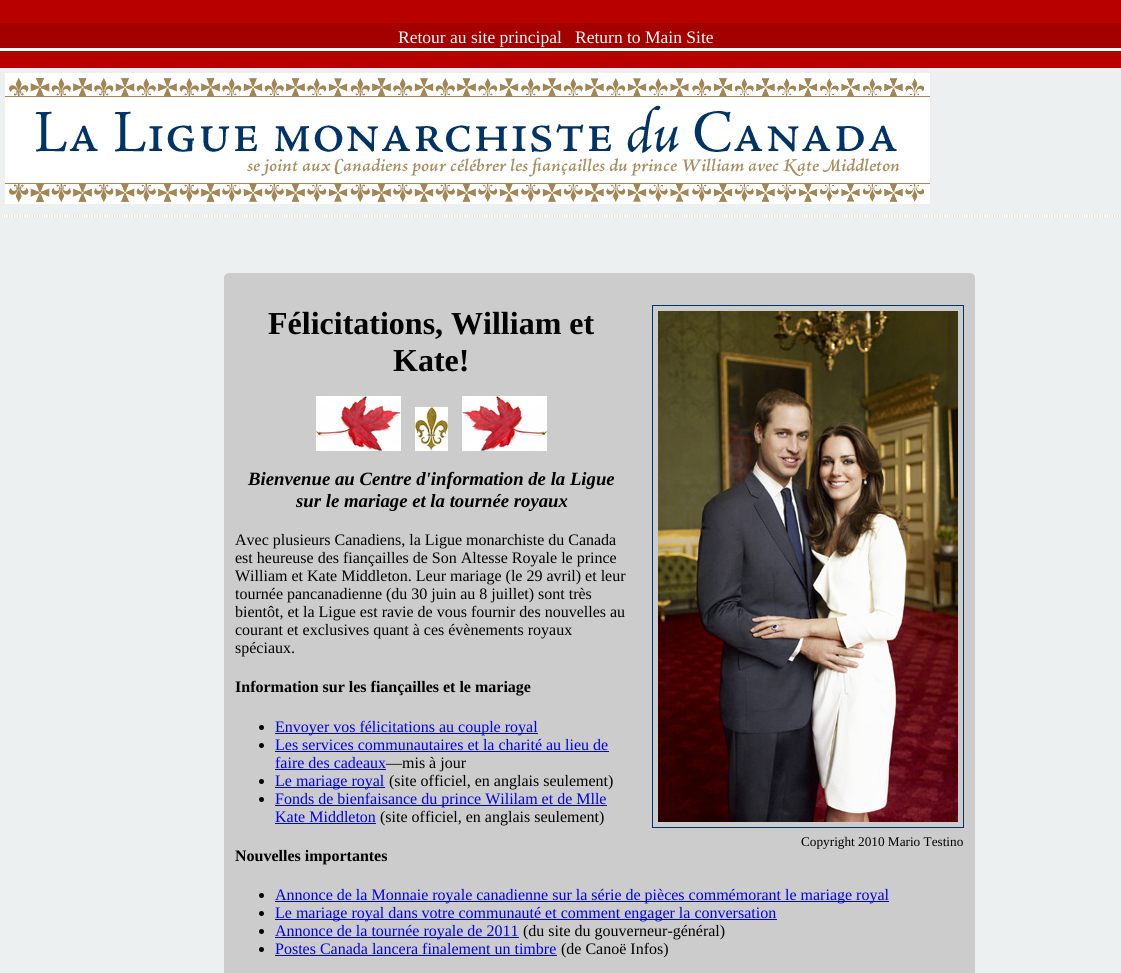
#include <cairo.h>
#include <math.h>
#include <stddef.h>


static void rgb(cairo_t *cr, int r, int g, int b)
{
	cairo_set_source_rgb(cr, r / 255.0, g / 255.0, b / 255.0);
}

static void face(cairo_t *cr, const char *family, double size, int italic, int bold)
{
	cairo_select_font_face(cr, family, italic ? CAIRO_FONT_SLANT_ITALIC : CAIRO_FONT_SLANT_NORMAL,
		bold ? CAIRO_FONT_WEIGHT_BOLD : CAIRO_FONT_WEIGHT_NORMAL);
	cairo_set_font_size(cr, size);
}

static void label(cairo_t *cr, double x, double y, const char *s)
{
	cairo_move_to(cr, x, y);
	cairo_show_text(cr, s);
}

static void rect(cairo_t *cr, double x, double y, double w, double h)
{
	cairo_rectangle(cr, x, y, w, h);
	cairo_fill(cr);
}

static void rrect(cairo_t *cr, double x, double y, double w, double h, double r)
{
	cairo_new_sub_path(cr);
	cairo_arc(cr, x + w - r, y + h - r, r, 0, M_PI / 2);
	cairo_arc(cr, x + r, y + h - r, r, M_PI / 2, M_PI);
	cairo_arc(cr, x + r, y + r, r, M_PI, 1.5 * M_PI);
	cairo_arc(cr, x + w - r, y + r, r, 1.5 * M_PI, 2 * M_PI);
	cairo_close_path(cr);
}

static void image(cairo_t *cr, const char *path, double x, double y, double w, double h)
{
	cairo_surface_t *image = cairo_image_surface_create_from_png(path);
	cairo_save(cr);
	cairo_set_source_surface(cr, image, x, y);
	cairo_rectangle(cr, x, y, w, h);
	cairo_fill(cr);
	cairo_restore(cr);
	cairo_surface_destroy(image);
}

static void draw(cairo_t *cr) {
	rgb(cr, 236, 240, 241);
	cairo_paint(cr);
	rgb(cr, 185, 0, 0);
	rect(cr, 0, 0, 1121, 23);
	rgb(cr, 164, 0, 0);
	rect(cr, 0, 23, 1121, 25);
	rgb(cr, 185, 0, 0);
	rect(cr, 0, 51, 1121, 17);
	rgb(cr, 255, 255, 255);
	rect(cr, 0, 48, 1121, 3);
	face(cr, "Liberation Serif", 17.5, 0, 0);
	label(cr, 398, 43, "Retour au site principal");
	label(cr, 575, 43, "Return to Main Site");
	image(cr, "image0.png", 0, 215, 1121, 2);
	image(cr, "image1.png", 5, 73, 925, 131);
	rgb(cr, 204, 204, 204);
	rrect(cr, 224, 273, 751, 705, 5);
	cairo_fill(cr);
	face(cr, "Liberation Serif", 32, 0, 1);
	rgb(cr, 0, 0, 0);
	label(cr, 268, 334, "Félicitations, William et");
	label(cr, 393, 371, "Kate!");
	image(cr, "image2.png", 316, 396, 85, 55);
	image(cr, "image3.png", 415, 407, 33, 44);
	image(cr, "image4.png", 462, 396, 85, 55);
	face(cr, "Liberation Serif", 18.75, 1, 1);
	label(cr, 248, 485, "Bienvenue au Centre d'information de la Ligue");
	label(cr, 296, 507, "sur le mariage et la tournée royaux");
	face(cr, "Liberation Serif", 16, 0, 0);
	label(cr, 235, 545, "Avec plusieurs Canadiens, la Ligue monarchiste du Canada");
	label(cr, 235, 563, "est heureuse des fiançailles de Son Altesse Royale le prince");
	label(cr, 235, 581, "William et Kate Middleton. Leur mariage (le 29 avril) et leur");
	label(cr, 235, 599, "tournée pancanadienne (du 30 juin au 8 juillet) sont très");
	label(cr, 235, 617, "bientôt, et la Ligue est ravie de vous fournir des nouvelles au");
	label(cr, 235, 635, "courant et exclusives quant à ces évènements royaux");
	label(cr, 235, 653, "spéciaux.");
	face(cr, "Liberation Serif", 16, 0, 1);
	label(cr, 235, 692, "Information sur les fiançailles et le mariage");
	cairo_new_path(cr);
	cairo_arc(cr, 261.5, 727.5, 2.5, 0, 2 * M_PI);
	cairo_fill(cr);
	rgb(cr, 0, 0, 238);
	rect(cr, 275, 733, 263, 1);
	face(cr, "Liberation Serif", 16, 0, 0);
	label(cr, 275, 732, "Envoyer vos félicitations au couple royal");
	rgb(cr, 0, 0, 0);
	cairo_new_path(cr);
	cairo_arc(cr, 261.5, 745.5, 2.5, 0, 2 * M_PI);
	cairo_fill(cr);
	rgb(cr, 0, 0, 238);
	label(cr, 275, 750, "Les services communautaires et la charité au lieu de");
	rect(cr, 275, 751, 334, 1);
	label(cr, 275, 768, "faire des cadeaux");
	rect(cr, 275, 769, 111, 1);
	rgb(cr, 0, 0, 0);
	label(cr, 386, 768, "—mis à jour");
	cairo_new_path(cr);
	cairo_arc(cr, 261.5, 781.5, 2.5, 0, 2 * M_PI);
	cairo_fill(cr);
	rgb(cr, 0, 0, 238);
	rect(cr, 275, 787, 110, 1);
	label(cr, 275, 786, "Le mariage royal");
	rgb(cr, 0, 0, 0);
	label(cr, 389, 786, "(site officiel, en anglais seulement)");
	cairo_new_path(cr);
	cairo_arc(cr, 261.5, 799.5, 2.5, 0, 2 * M_PI);
	cairo_fill(cr);
	rgb(cr, 0, 0, 238);
	rect(cr, 275, 805, 332, 1);
	label(cr, 275, 804, "Fonds de bienfaisance du prince Wililam et de Mlle");
	label(cr, 275, 822, "Kate Middleton");
	rect(cr, 275, 823, 101, 1);
	rgb(cr, 0, 0, 0);
	label(cr, 380, 822, "(site officiel, en anglais seulement)");
	cairo_rectangle(cr, 652.5, 305.5, 311, 522);
	rgb(cr, 0, 51, 102);
	cairo_set_line_width(cr, 1);
	cairo_stroke(cr);
	image(cr, "image5.png", 658, 311, 300, 511);
	face(cr, "Liberation Serif", 13.25, 0, 0);
	rgb(cr, 0, 0, 0);
	label(cr, 801, 846, "Copyright 2010 Mario Testino");
	face(cr, "Liberation Serif", 16, 0, 1);
	label(cr, 235, 861, "Nouvelles importantes");
	cairo_new_path(cr);
	cairo_arc(cr, 261.5, 895.5, 2.5, 0, 2 * M_PI);
	cairo_fill(cr);
	rgb(cr, 0, 0, 238);
	rect(cr, 275, 901, 614, 1);
	face(cr, "Liberation Serif", 16, 0, 0);
	label(cr, 275, 900, "Annonce de la Monnaie royale canadienne sur la série de pièces commémorant le mariage royal");
	rgb(cr, 0, 0, 0);
	cairo_new_path(cr);
	cairo_arc(cr, 261.5, 913.5, 2.5, 0, 2 * M_PI);
	cairo_fill(cr);
	rgb(cr, 0, 0, 238);
	rect(cr, 275, 919, 502, 1);
	label(cr, 275, 918, "Le mariage royal dans votre communauté et comment engager la conversation");
	rgb(cr, 0, 0, 0);
	cairo_new_path(cr);
	cairo_arc(cr, 261.5, 931.5, 2.5, 0, 2 * M_PI);
	cairo_fill(cr);
	rgb(cr, 0, 0, 238);
	rect(cr, 275, 937, 244, 1);
	label(cr, 275, 936, "Annonce de la tournée royale de 2011");
	rgb(cr, 0, 0, 0);
	label(cr, 523, 936, "(du site du gouverneur-général)");
	cairo_new_path(cr);
	cairo_arc(cr, 261.5, 949.5, 2.5, 0, 2 * M_PI);
	cairo_fill(cr);
	rgb(cr, 0, 0, 238);
	label(cr, 275, 954, "Postes Canada lancera finalement un timbre");
	rect(cr, 275, 955, 282, 1);
	rgb(cr, 0, 0, 0);
	label(cr, 561, 954, "(de Canoë Infos)");
}

int main(void) {
	cairo_surface_t *surface = cairo_image_surface_create(CAIRO_FORMAT_RGB24, 1121, 973);
	cairo_t *cr = cairo_create(surface);
	cairo_font_options_t *options = cairo_font_options_create();
	cairo_font_options_set_hint_metrics(options, CAIRO_HINT_METRICS_OFF);
	cairo_font_options_set_hint_style(options, CAIRO_HINT_STYLE_NONE);
	cairo_set_font_options(cr, options);
	cairo_set_miter_limit(cr, 4);
	draw(cr);
	cairo_surface_write_to_png(surface, "render.png");
	cairo_font_options_destroy(options);
	cairo_destroy(cr);
	cairo_surface_destroy(surface);
	return 0;
}
